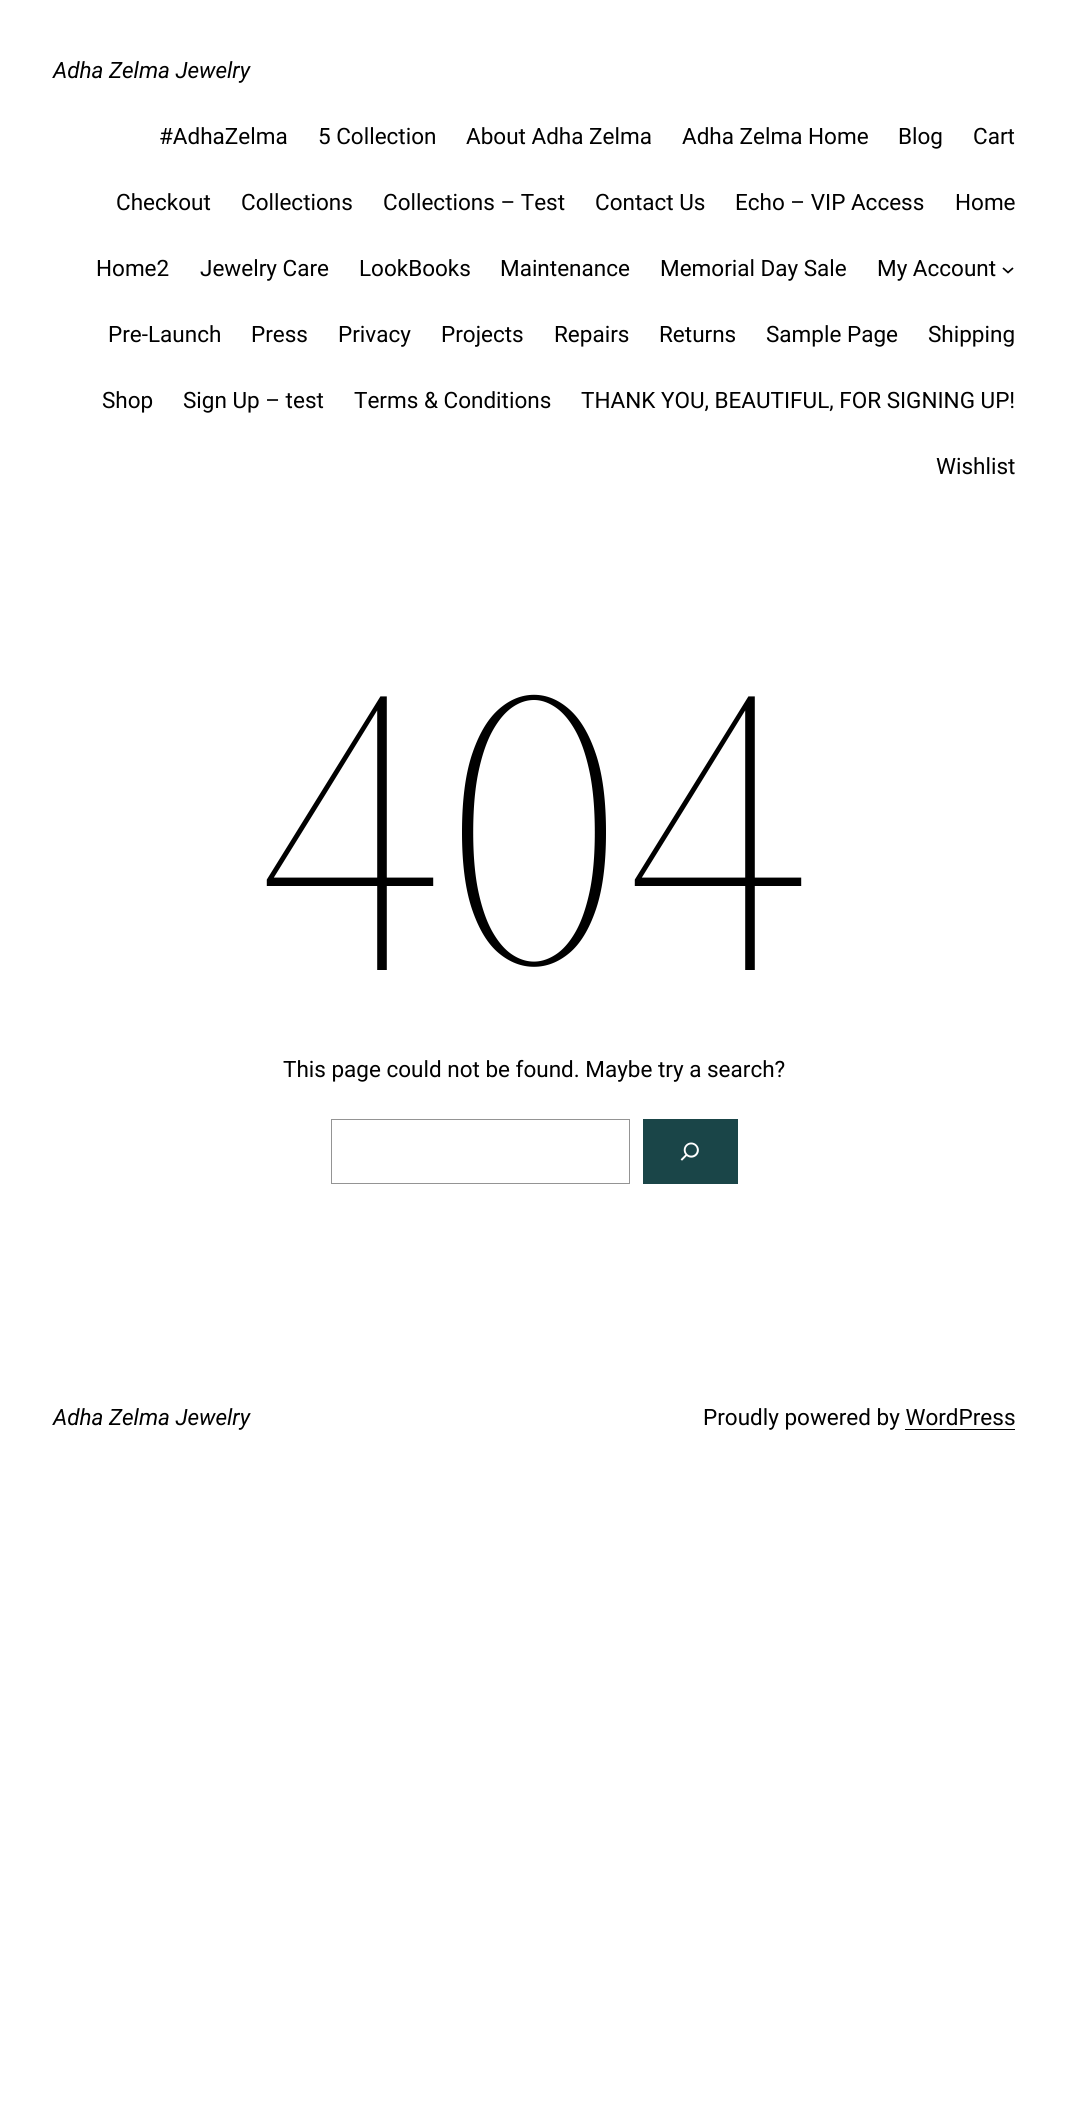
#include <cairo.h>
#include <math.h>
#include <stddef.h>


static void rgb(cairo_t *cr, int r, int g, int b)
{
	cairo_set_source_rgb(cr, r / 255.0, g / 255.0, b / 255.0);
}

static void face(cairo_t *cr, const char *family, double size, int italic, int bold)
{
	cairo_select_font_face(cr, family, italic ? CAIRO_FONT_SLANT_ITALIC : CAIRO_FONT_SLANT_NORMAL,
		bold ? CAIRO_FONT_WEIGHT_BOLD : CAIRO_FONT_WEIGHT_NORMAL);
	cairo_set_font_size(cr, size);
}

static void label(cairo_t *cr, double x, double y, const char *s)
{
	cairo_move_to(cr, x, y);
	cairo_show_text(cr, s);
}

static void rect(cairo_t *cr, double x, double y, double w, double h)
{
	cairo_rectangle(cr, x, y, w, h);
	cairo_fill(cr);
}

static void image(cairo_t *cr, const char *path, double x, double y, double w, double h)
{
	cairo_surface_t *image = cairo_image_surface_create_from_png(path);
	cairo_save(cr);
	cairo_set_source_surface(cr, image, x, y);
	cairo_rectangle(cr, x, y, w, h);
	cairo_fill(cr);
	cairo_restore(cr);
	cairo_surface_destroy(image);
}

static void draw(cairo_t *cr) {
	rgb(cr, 255, 255, 255);
	cairo_paint(cr);
	face(cr, "Roboto", 22.5, 1, 0);
	rgb(cr, 0, 0, 0);
	label(cr, 53, 78, "Adha Zelma Jewelry");
	face(cr, "Roboto", 22.5, 0, 0);
	label(cr, 159, 144, "#AdhaZelma");
	label(cr, 318, 144, "5 Collection");
	label(cr, 466, 144, "About Adha Zelma");
	label(cr, 682, 144, "Adha Zelma Home");
	label(cr, 898, 144, "Blog");
	label(cr, 973, 144, "Cart");
	label(cr, 116, 210, "Checkout");
	label(cr, 241, 210, "Collections");
	label(cr, 383, 210, "Collections – Test");
	label(cr, 595, 210, "Contact Us");
	label(cr, 735, 210, "Echo – VIP Access");
	label(cr, 955, 210, "Home");
	label(cr, 96, 276, "Home2");
	label(cr, 200, 276, "Jewelry Care");
	label(cr, 359, 276, "LookBooks");
	label(cr, 500, 276, "Maintenance");
	label(cr, 660, 276, "Memorial Day Sale");
	label(cr, 877, 276, "My Account");
	cairo_new_path(cr);
	cairo_move_to(cr, 1003, 268);
	cairo_line_to(cr, 1008, 272.5);
	cairo_line_to(cr, 1013, 268);
	cairo_set_line_width(cr, 1.7);
	cairo_stroke(cr);
	label(cr, 108, 342, "Pre-Launch");
	label(cr, 251, 342, "Press");
	label(cr, 338, 342, "Privacy");
	label(cr, 441, 342, "Projects");
	label(cr, 554, 342, "Repairs");
	label(cr, 659, 342, "Returns");
	label(cr, 766, 342, "Sample Page");
	label(cr, 928, 342, "Shipping");
	label(cr, 102, 408, "Shop");
	label(cr, 183, 408, "Sign Up – test");
	label(cr, 354, 408, "Terms & Conditions");
	label(cr, 581, 408, "THANK YOU, BEAUTIFUL, FOR SIGNING UP!");
	label(cr, 936, 474, "Wishlist");
	face(cr, "Source Serif 4 ExtraLight", 400, 0, 0);
	label(cr, 258, 962, "404");
	face(cr, "Roboto", 22.5, 0, 0);
	label(cr, 283, 1077, "This page could not be found. Maybe try a search?");
	cairo_rectangle(cr, 331.5, 1119.5, 298, 64);
	rgb(cr, 148, 148, 148);
	cairo_set_line_width(cr, 1);
	cairo_stroke(cr);
	rgb(cr, 26, 69, 72);
	rect(cr, 643, 1119, 95, 65);
	image(cr, "image0.png", 680, 1142, 19, 19);
	face(cr, "Roboto", 22.5, 1, 0);
	rgb(cr, 0, 0, 0);
	label(cr, 53, 1425, "Adha Zelma Jewelry");
	face(cr, "Roboto", 22.5, 0, 0);
	label(cr, 703, 1425, "Proudly powered by WordPress");
	rect(cr, 905, 1429, 110, 1);
}

int main(void) {
	cairo_surface_t *surface = cairo_image_surface_create(CAIRO_FORMAT_RGB24, 1068, 2125);
	cairo_t *cr = cairo_create(surface);
	cairo_font_options_t *options = cairo_font_options_create();
	cairo_font_options_set_hint_metrics(options, CAIRO_HINT_METRICS_OFF);
	cairo_font_options_set_hint_style(options, CAIRO_HINT_STYLE_NONE);
	cairo_set_font_options(cr, options);
	cairo_set_miter_limit(cr, 4);
	draw(cr);
	cairo_surface_write_to_png(surface, "render.png");
	cairo_font_options_destroy(options);
	cairo_destroy(cr);
	cairo_surface_destroy(surface);
	return 0;
}
